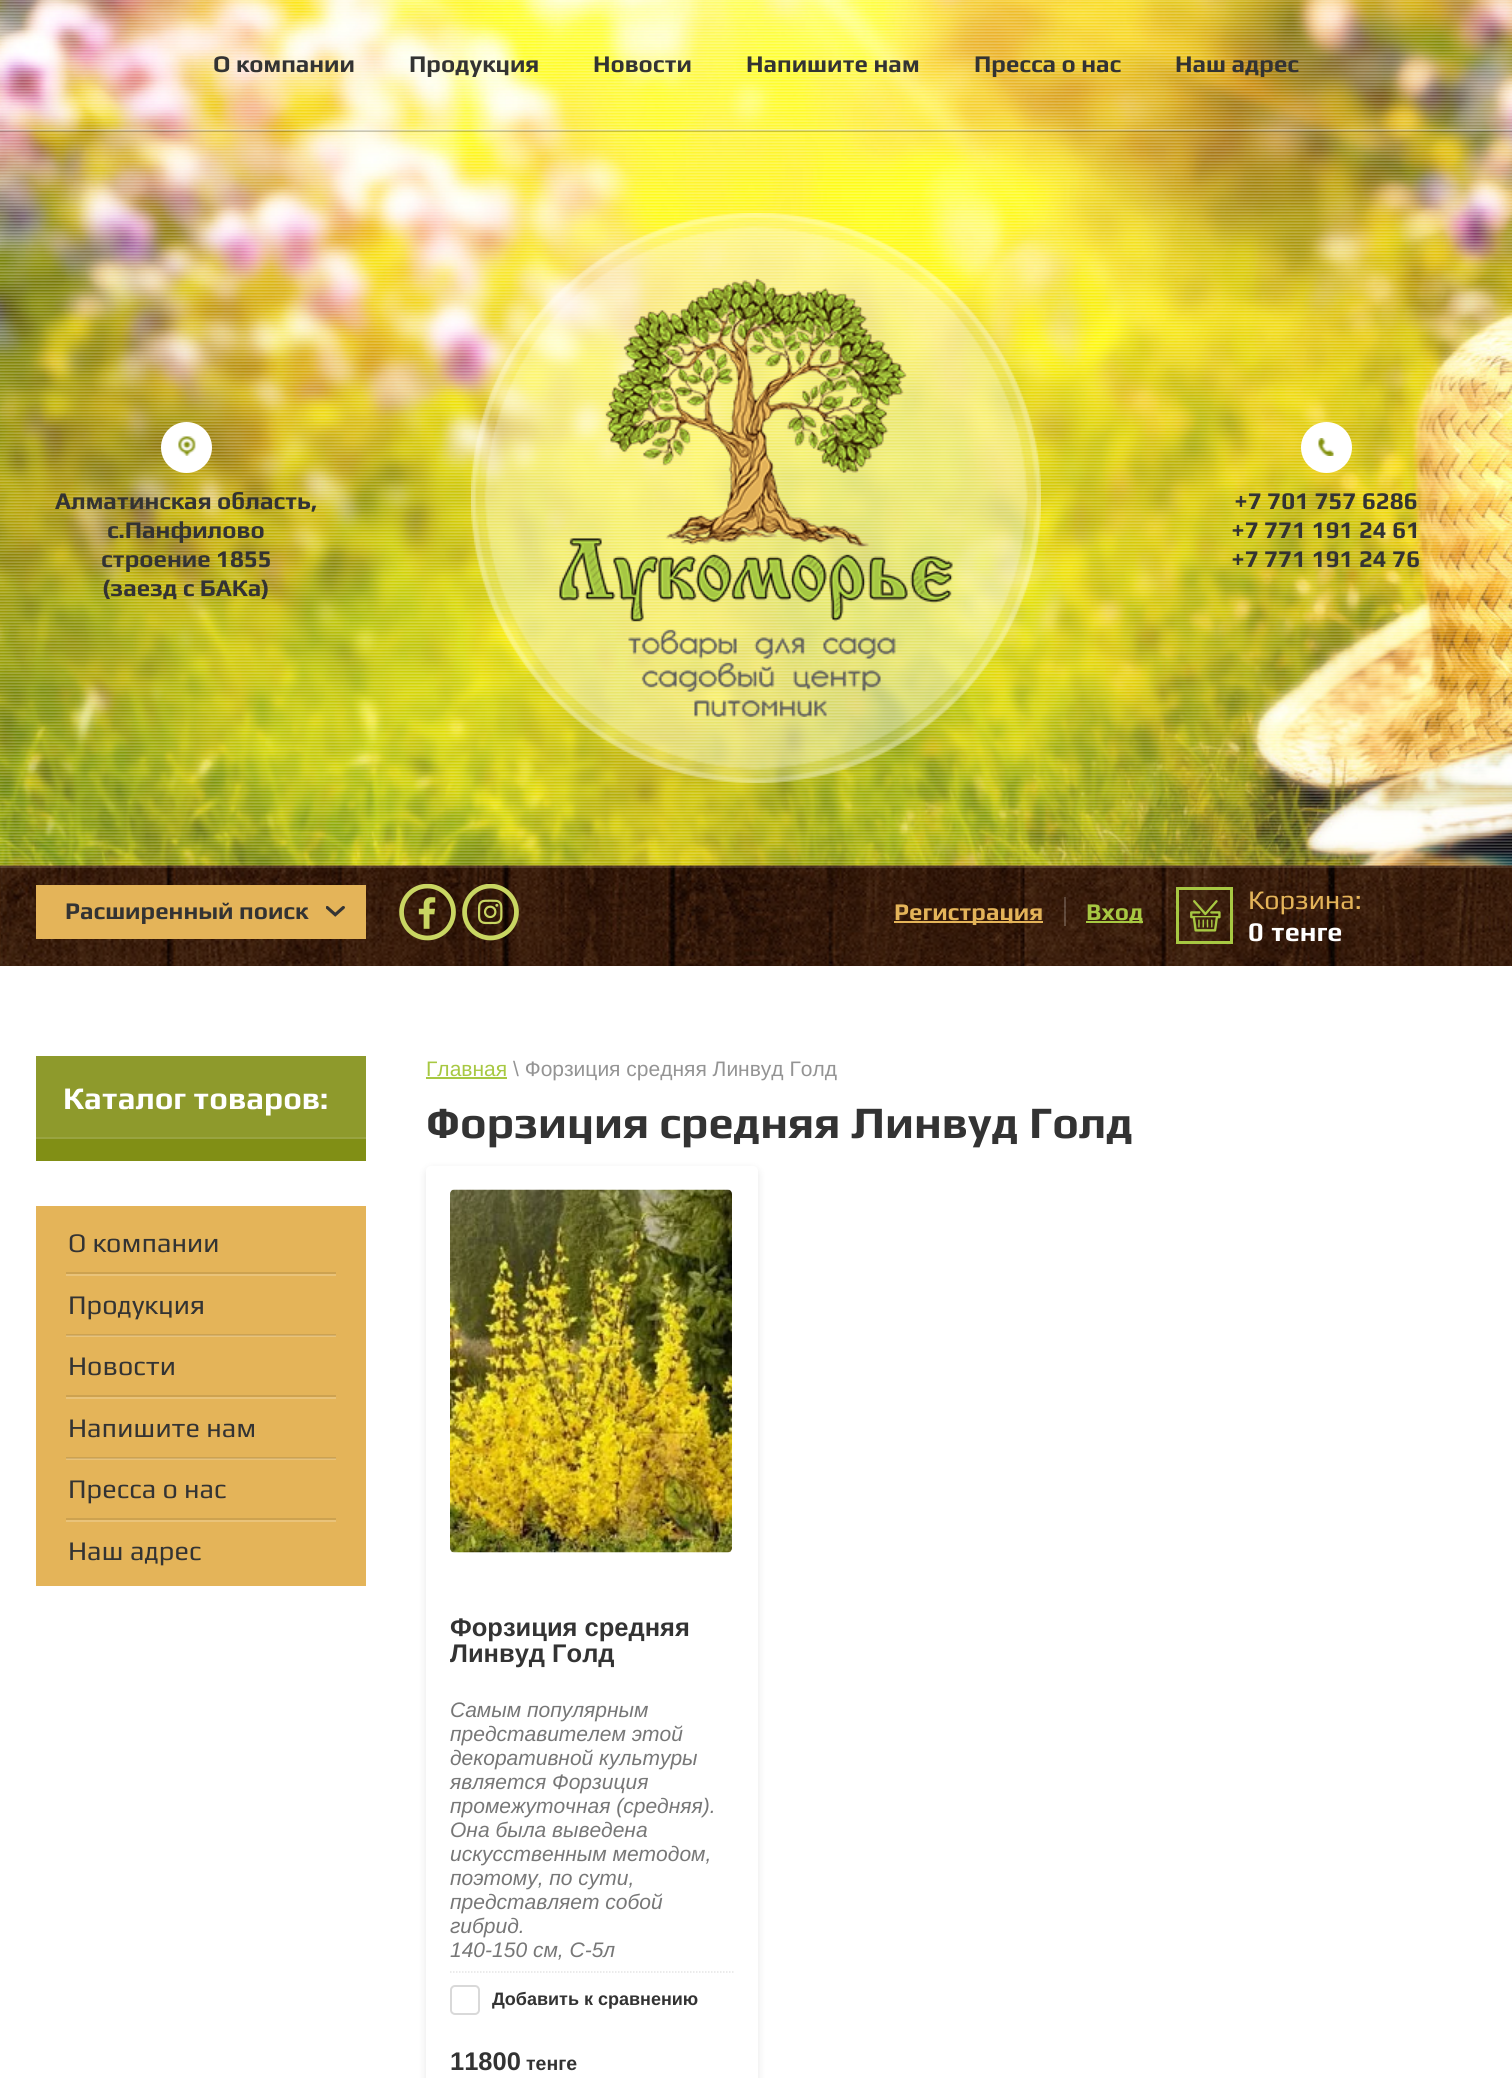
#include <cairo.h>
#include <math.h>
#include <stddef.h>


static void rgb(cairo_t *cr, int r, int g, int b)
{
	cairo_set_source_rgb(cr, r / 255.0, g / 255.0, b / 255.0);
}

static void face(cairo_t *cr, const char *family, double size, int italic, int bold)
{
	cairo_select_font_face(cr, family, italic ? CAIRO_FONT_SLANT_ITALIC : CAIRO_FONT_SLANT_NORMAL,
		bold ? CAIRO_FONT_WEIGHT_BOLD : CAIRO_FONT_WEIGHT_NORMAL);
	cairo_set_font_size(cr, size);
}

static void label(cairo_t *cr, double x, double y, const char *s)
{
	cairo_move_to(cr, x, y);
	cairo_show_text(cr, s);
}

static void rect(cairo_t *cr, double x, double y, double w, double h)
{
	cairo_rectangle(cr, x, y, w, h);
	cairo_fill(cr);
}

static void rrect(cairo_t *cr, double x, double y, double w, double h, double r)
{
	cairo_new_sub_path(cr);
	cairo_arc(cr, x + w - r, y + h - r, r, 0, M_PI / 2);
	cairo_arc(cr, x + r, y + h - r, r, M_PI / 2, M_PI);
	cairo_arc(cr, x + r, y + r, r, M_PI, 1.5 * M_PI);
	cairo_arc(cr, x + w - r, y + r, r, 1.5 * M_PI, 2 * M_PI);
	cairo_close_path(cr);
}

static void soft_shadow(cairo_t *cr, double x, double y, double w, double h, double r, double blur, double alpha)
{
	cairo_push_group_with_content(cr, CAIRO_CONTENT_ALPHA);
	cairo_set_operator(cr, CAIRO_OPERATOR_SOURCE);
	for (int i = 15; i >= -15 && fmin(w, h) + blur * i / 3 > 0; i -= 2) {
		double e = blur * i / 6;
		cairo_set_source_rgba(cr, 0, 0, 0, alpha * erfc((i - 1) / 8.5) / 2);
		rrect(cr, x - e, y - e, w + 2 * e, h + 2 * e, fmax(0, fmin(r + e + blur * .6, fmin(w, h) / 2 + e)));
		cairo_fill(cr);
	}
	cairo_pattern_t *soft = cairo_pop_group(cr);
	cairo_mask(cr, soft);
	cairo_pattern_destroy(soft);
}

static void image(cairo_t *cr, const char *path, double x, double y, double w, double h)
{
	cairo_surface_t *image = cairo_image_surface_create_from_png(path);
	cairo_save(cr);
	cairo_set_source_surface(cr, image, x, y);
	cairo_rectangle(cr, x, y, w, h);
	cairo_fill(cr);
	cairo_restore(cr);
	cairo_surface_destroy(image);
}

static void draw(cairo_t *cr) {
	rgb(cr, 255, 255, 255);
	cairo_paint(cr);
	image(cr, "image5.png", 0, 865, 1512, 101);
	image(cr, "image0.png", 0, 0, 1512, 866);
	cairo_set_source_rgba(cr, 0, 0, 0, 0.2);
	rect(cr, 0, 130, 1512, 2);
	cairo_set_source_rgba(cr, 1, 1, 1, 0.3);
	rect(cr, 0, 129, 1512, 2);
	face(cr, "Play", 24, 0, 1);
	rgb(cr, 51, 51, 51);
	label(cr, 213, 72, "О компании");
	label(cr, 409, 72, "Продукция");
	label(cr, 593, 72, "Новости");
	label(cr, 746, 72, "Напишите нам");
	label(cr, 974, 72, "Пресса о нас");
	label(cr, 1175, 72, "Наш адрес");
	rgb(cr, 255, 255, 255);
	cairo_new_path(cr);
	cairo_arc(cr, 186.5, 447.5, 25.5, 0, 2 * M_PI);
	cairo_fill(cr);
	image(cr, "image1.png", 178, 436, 18, 20);
	rgb(cr, 51, 51, 51);
	label(cr, 55, 509, "Алматинская область,");
	label(cr, 107, 538, "с.Панфилово");
	label(cr, 101, 567, "строение 1855");
	label(cr, 102, 596, "(заезд с БАКа)");
	image(cr, "image2.png", 471, 213, 570, 570);
	image(cr, "image3.png", 559, 278, 394, 439);
	rgb(cr, 255, 255, 255);
	cairo_arc(cr, 1326.5, 447.5, 25.5, 0, 2 * M_PI);
	cairo_fill(cr);
	image(cr, "image4.png", 1318, 438, 16, 18);
	rgb(cr, 51, 51, 51);
	label(cr, 1234, 509, "+7 701 757 6286");
	label(cr, 1231, 538, "+7 771 191 24 61");
	label(cr, 1231, 567, "+7 771 191 24 76");
	cairo_set_source_rgba(cr, 0.949, 0.89, 0.776, 0.15);
	rect(cr, 0, 866, 1512, 2);
	rgb(cr, 228, 180, 89);
	rect(cr, 36, 885, 330, 54);
	image(cr, "image6.png", 326, 906, 19, 11);
	rgb(cr, 51, 51, 51);
	label(cr, 65, 919, "Расширенный поиск");
	image(cr, "image7.png", 399, 884, 57, 57);
	image(cr, "image8.png", 462, 884, 57, 57);
	rgb(cr, 228, 180, 89);
	rect(cr, 894, 921, 149, 2);
	label(cr, 894, 920, "Регистрация");
	rgb(cr, 167, 200, 66);
	rect(cr, 1086, 921, 57, 2);
	label(cr, 1086, 920, "Вход");
	cairo_set_source_rgba(cr, 1, 1, 1, 0.2);
	rect(cr, 1064, 897, 2, 29);
	cairo_rectangle(cr, 1177.5, 888.5, 54, 54);
	rgb(cr, 167, 200, 66);
	cairo_set_line_width(cr, 3);
	cairo_stroke(cr);
	image(cr, "image9.png", 1190, 900, 31, 32);
	face(cr, "Play", 27, 0, 0);
	rgb(cr, 228, 180, 89);
	label(cr, 1248, 909, "Корзина:");
	face(cr, "Play", 27, 0, 1);
	rgb(cr, 255, 255, 255);
	label(cr, 1248, 941, "0");
	label(cr, 1271, 941, "тенге");
	rgb(cr, 129, 143, 21);
	rect(cr, 36, 1139, 330, 22);
	rgb(cr, 142, 154, 44);
	rect(cr, 36, 1056, 330, 81);
	rgb(cr, 153, 164, 65);
	rect(cr, 36, 1137, 330, 2);
	face(cr, "Play", 31.5, 0, 1);
	rgb(cr, 255, 255, 255);
	label(cr, 63, 1109, "Каталог товаров:");
	rgb(cr, 228, 180, 89);
	rect(cr, 36, 1206, 330, 380);
	rgb(cr, 205, 162, 80);
	rect(cr, 66, 1457, 270, 1);
	rect(cr, 66, 1334, 270, 1);
	face(cr, "Play", 27, 0, 0);
	rgb(cr, 51, 51, 51);
	label(cr, 68, 1252, "О компании");
	rgb(cr, 233, 195, 122);
	rect(cr, 66, 1274, 270, 2);
	rgb(cr, 205, 162, 80);
	rect(cr, 66, 1272, 270, 2);
	rgb(cr, 51, 51, 51);
	label(cr, 68, 1314, "Продукция");
	rgb(cr, 233, 195, 122);
	rect(cr, 66, 1336, 270, 1);
	rgb(cr, 210, 176, 110);
	rect(cr, 66, 1335, 270, 1);
	rgb(cr, 51, 51, 51);
	label(cr, 68, 1375, "Новости");
	rgb(cr, 233, 195, 122);
	rect(cr, 66, 1397, 270, 2);
	rgb(cr, 205, 162, 80);
	rect(cr, 66, 1395, 270, 2);
	rgb(cr, 51, 51, 51);
	label(cr, 68, 1437, "Напишите нам");
	rgb(cr, 233, 195, 122);
	rect(cr, 66, 1459, 270, 1);
	rgb(cr, 210, 176, 110);
	rect(cr, 66, 1458, 270, 1);
	rgb(cr, 51, 51, 51);
	label(cr, 68, 1498, "Пресса о нас");
	rgb(cr, 233, 195, 122);
	rect(cr, 66, 1520, 270, 2);
	rgb(cr, 205, 162, 80);
	rect(cr, 66, 1518, 270, 2);
	rgb(cr, 51, 51, 51);
	label(cr, 68, 1560, "Наш адрес");
	face(cr, "Liberation Sans", 21, 0, 0);
	rgb(cr, 167, 200, 66);
	label(cr, 426, 1076, "Главная");
	rect(cr, 426, 1077, 81, 2);
	rgb(cr, 148, 148, 148);
	label(cr, 513, 1076, "\\ Форзиция средняя Линвуд Голд");
	face(cr, "Play", 45, 0, 1);
	rgb(cr, 51, 51, 51);
	label(cr, 426, 1138, "Форзиция средняя Линвуд Голд");
	rgb(cr, 0, 0, 0);
	soft_shadow(cr, 426, 1169, 332, 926, 5, 4, 0.1);
	rgb(cr, 255, 255, 255);
	rrect(cr, 426, 1166, 332, 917, 5);
	cairo_fill(cr);
	image(cr, "image10.png", 450, 1189, 282, 364);
	face(cr, "Liberation Sans", 25.5, 0, 1);
	rgb(cr, 51, 51, 51);
	label(cr, 450, 1636, "Форзиция средняя");
	label(cr, 450, 1662, "Линвуд Голд");
	face(cr, "Liberation Sans", 21, 1, 0);
	rgb(cr, 119, 119, 119);
	label(cr, 450, 1717, "Самым популярным");
	label(cr, 450, 1741, "представителем этой");
	label(cr, 450, 1765, "декоративной культуры");
	label(cr, 450, 1789, "является Форзиция");
	label(cr, 450, 1813, "промежуточная (средняя).");
	label(cr, 450, 1837, "Она была выведена");
	label(cr, 450, 1861, "искусственным методом,");
	label(cr, 450, 1885, "поэтому, по сути,");
	label(cr, 450, 1909, "представляет собой");
	label(cr, 450, 1933, "гибрид.");
	label(cr, 450, 1957, "140-150 см, С-5л");
	cairo_new_path(cr);
	cairo_move_to(cr, 450, 1972);
	cairo_line_to(cr, 733.5, 1972);
	rgb(cr, 229, 229, 229);
	cairo_set_line_width(cr, 1.5);
	cairo_set_dash(cr, (double[]){1.5, 1.5}, 2, 0);
	cairo_stroke(cr);
	rrect(cr, 451, 1986, 28, 28, 4);
	rgb(cr, 217, 217, 217);
	cairo_set_line_width(cr, 2);
	cairo_set_dash(cr, NULL, 0, 0);
	cairo_stroke(cr);
	face(cr, "Liberation Sans", 18, 0, 1);
	rgb(cr, 51, 51, 51);
	label(cr, 492, 2005, "Добавить к сравнению");
	face(cr, "Liberation Sans", 25.5, 0, 1);
	label(cr, 450, 2070, "11800");
	face(cr, "Liberation Sans", 19.5, 0, 1);
	label(cr, 526, 2070, "тенге");
}

int main(void) {
	cairo_surface_t *surface = cairo_image_surface_create(CAIRO_FORMAT_RGB24, 1512, 2078);
	cairo_t *cr = cairo_create(surface);
	cairo_font_options_t *options = cairo_font_options_create();
	cairo_font_options_set_hint_metrics(options, CAIRO_HINT_METRICS_OFF);
	cairo_font_options_set_hint_style(options, CAIRO_HINT_STYLE_NONE);
	cairo_set_font_options(cr, options);
	cairo_set_miter_limit(cr, 4);
	draw(cr);
	cairo_surface_write_to_png(surface, "render.png");
	cairo_font_options_destroy(options);
	cairo_destroy(cr);
	cairo_surface_destroy(surface);
	return 0;
}
